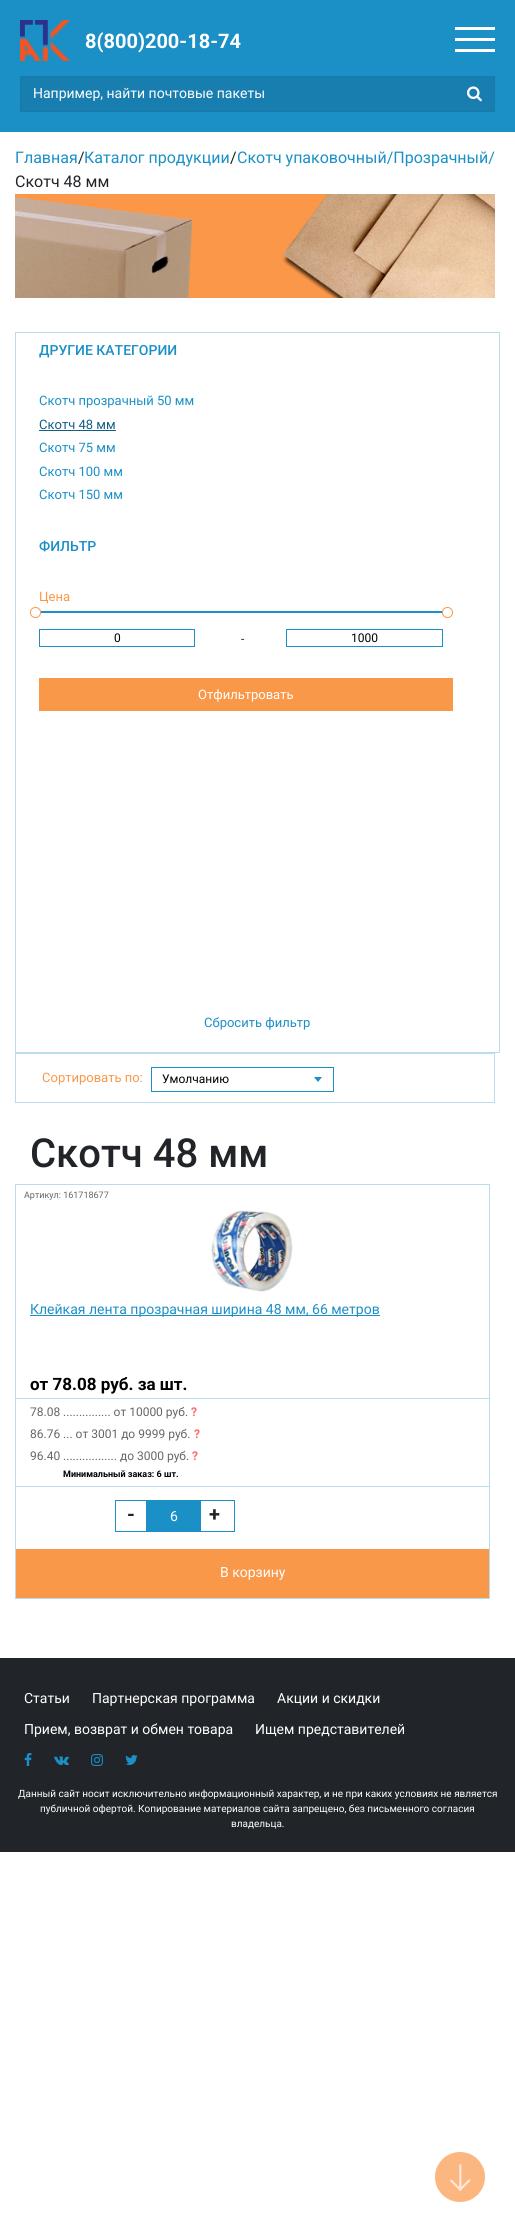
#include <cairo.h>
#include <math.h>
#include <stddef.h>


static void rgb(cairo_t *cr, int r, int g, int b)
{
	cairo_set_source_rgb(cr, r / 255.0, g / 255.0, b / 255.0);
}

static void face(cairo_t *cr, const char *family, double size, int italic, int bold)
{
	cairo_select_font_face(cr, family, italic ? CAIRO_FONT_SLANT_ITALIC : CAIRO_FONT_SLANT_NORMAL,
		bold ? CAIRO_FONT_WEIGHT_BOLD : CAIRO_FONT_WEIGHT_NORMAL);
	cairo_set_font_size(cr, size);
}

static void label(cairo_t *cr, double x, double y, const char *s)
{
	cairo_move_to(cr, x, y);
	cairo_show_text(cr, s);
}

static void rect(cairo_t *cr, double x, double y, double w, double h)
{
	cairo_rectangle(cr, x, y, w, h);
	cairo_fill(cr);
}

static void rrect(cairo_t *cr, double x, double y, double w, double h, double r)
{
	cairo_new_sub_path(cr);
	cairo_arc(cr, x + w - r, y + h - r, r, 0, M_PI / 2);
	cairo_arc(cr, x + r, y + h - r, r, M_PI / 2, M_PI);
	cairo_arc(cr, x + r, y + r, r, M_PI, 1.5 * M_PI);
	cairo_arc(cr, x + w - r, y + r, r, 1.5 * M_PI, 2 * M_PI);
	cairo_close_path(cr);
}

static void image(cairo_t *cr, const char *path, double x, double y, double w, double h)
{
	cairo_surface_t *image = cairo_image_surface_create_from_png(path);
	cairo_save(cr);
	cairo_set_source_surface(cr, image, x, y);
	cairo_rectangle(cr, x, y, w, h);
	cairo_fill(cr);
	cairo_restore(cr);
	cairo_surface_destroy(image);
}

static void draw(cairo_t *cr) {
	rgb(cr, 255, 255, 255);
	cairo_paint(cr);
	rgb(cr, 27, 144, 199);
	rect(cr, 0, 0, 515, 132);
	image(cr, "image0.png", 20, 20, 50, 41);
	face(cr, "Roboto", 20, 0, 1);
	rgb(cr, 255, 255, 255);
	label(cr, 85, 48, "8(800)200-18-74");
	rect(cr, 455, 27, 40, 3);
	rect(cr, 455, 38, 40, 3);
	rect(cr, 455, 49, 40, 3);
	rgb(cr, 23, 126, 175);
	cairo_rectangle(cr, 20.5, 76.5, 474, 35);
	cairo_fill_preserve(cr);
	rgb(cr, 23, 122, 169);
	cairo_set_line_width(cr, 1);
	cairo_stroke(cr);
	face(cr, "Roboto", 14, 0, 0);
	rgb(cr, 255, 255, 255);
	label(cr, 33, 98, "Например, найти почтовые пакеты");
	image(cr, "image1.png", 467, 86, 15, 16);
	face(cr, "Roboto", 16, 0, 0);
	rgb(cr, 27, 144, 199);
	label(cr, 15, 163, "Главная");
	rgb(cr, 33, 37, 41);
	label(cr, 78, 163, "/");
	rgb(cr, 27, 144, 199);
	label(cr, 84, 163, "Каталог продукции");
	rgb(cr, 33, 37, 41);
	label(cr, 230, 163, "/");
	rgb(cr, 27, 144, 199);
	label(cr, 237, 163, "Скотч упаковочный/Прозрачный/");
	rgb(cr, 33, 37, 41);
	label(cr, 15, 187, "Скотч 48 мм");
	image(cr, "image2.png", 15, 194, 480, 104);
	cairo_rectangle(cr, 15.5, 332.5, 484, 720);
	rgb(cr, 186, 221, 238);
	cairo_stroke(cr);
	face(cr, "Roboto Medium", 14, 0, 0);
	rgb(cr, 27, 144, 199);
	label(cr, 39, 355, "ДРУГИЕ КАТЕГОРИИ");
	face(cr, "Roboto", 13, 0, 0);
	label(cr, 39, 405, "Скотч прозрачный 50 мм");
	rgb(cr, 18, 95, 132);
	label(cr, 39, 429, "Скотч 48 мм");
	rect(cr, 39, 430, 77, 1);
	rgb(cr, 27, 144, 199);
	label(cr, 39, 452, "Скотч 75 мм");
	label(cr, 39, 476, "Скотч 100 мм");
	label(cr, 39, 499, "Скотч 150 мм");
	face(cr, "Roboto Medium", 14, 0, 0);
	label(cr, 39, 551, "ФИЛЬТР");
	face(cr, "Roboto", 13, 0, 0);
	rgb(cr, 250, 152, 73);
	label(cr, 39, 601, "Цена");
	rgb(cr, 27, 144, 199);
	rrect(cr, 40, 611, 412, 2, 1);
	cairo_fill(cr);
	rgb(cr, 255, 255, 255);
	cairo_arc(cr, 35.5, 612.5, 5, 0, 2 * M_PI);
	cairo_fill_preserve(cr);
	rgb(cr, 250, 152, 73);
	cairo_stroke(cr);
	rgb(cr, 255, 255, 255);
	cairo_arc(cr, 447.5, 612.5, 5, 0, 2 * M_PI);
	cairo_fill_preserve(cr);
	rgb(cr, 250, 152, 73);
	cairo_stroke(cr);
	cairo_rectangle(cr, 39.5, 629.5, 155, 17);
	rgb(cr, 27, 144, 199);
	cairo_stroke(cr);
	face(cr, "Roboto", 12, 0, 0);
	rgb(cr, 0, 0, 0);
	label(cr, 114, 642, "0");
	rgb(cr, 33, 37, 41);
	label(cr, 241, 643, "-");
	cairo_rectangle(cr, 286.5, 629.5, 156, 17);
	rgb(cr, 27, 144, 199);
	cairo_stroke(cr);
	rgb(cr, 0, 0, 0);
	label(cr, 351, 642, "1000");
	rgb(cr, 250, 152, 73);
	rect(cr, 39, 678, 414, 33);
	face(cr, "Roboto", 13, 0, 0);
	rgb(cr, 255, 255, 255);
	label(cr, 198, 699, "Отфильтровать");
	rgb(cr, 27, 144, 199);
	label(cr, 204, 1027, "Сбросить фильтр");
	cairo_rectangle(cr, 15.5, 1053.5, 479, 49);
	rgb(cr, 186, 221, 238);
	cairo_stroke(cr);
	rgb(cr, 250, 152, 73);
	label(cr, 42, 1082, "Сортировать по:");
	image(cr, "image3.png", 314, 1077, 8, 5);
	cairo_rectangle(cr, 151.5, 1067.5, 182, 24);
	rgb(cr, 27, 144, 199);
	cairo_stroke(cr);
	face(cr, "Roboto", 12, 0, 0);
	rgb(cr, 0, 0, 0);
	label(cr, 162, 1083, "Умолчанию");
	face(cr, "Roboto Medium", 40, 0, 0);
	rgb(cr, 33, 37, 41);
	label(cr, 30, 1167, "Скотч 48 мм");
	cairo_rectangle(cr, 15.5, 1184.5, 474, 414);
	rgb(cr, 186, 221, 238);
	cairo_stroke(cr);
	face(cr, "Roboto", 9, 0, 0);
	rgb(cr, 102, 102, 102);
	label(cr, 24, 1198, "Артикул: 161718677");
	image(cr, "image4.png", 211, 1210, 82, 82);
	rgb(cr, 27, 144, 199);
	rect(cr, 30, 1315, 350, 1);
	face(cr, "Roboto", 14, 0, 0);
	label(cr, 30, 1314, "Клейкая лента прозрачная ширина 48 мм, 66 метров");
	face(cr, "Roboto", 17, 0, 1);
	rgb(cr, 0, 0, 0);
	label(cr, 30, 1390, "от 78.08 руб. за шт.");
	rgb(cr, 186, 221, 238);
	rect(cr, 16, 1398, 473, 1);
	rect(cr, 16, 1486, 473, 1);
	face(cr, "Roboto", 12, 0, 0);
	rgb(cr, 102, 102, 102);
	label(cr, 30, 1416, "78.08 ............... от 10000 руб.");
	face(cr, "Roboto", 12, 0, 1);
	rgb(cr, 255, 102, 102);
	label(cr, 191, 1416, "?");
	face(cr, "Roboto", 12, 0, 0);
	rgb(cr, 102, 102, 102);
	label(cr, 30, 1438, "86.76 ... от 3001 до 9999 руб.");
	face(cr, "Roboto", 12, 0, 1);
	rgb(cr, 255, 102, 102);
	label(cr, 194, 1438, "?");
	face(cr, "Roboto", 12, 0, 0);
	rgb(cr, 102, 102, 102);
	label(cr, 30, 1460, "96.40 ................. до 3000 руб.");
	face(cr, "Roboto", 12, 0, 1);
	rgb(cr, 255, 102, 102);
	label(cr, 192, 1460, "?");
	face(cr, "Roboto", 9, 0, 1);
	rgb(cr, 0, 0, 0);
	label(cr, 63, 1477, "Минимальный заказ: 6 шт.");
	cairo_rectangle(cr, 115.5, 1500.5, 119, 31);
	rgb(cr, 27, 144, 199);
	cairo_stroke(cr);
	face(cr, "Roboto", 20, 0, 1);
	rgb(cr, 33, 37, 41);
	label(cr, 127, 1521, "-");
	rgb(cr, 27, 144, 199);
	rect(cr, 146, 1501, 55, 30);
	face(cr, "Roboto", 14, 0, 0);
	rgb(cr, 255, 255, 255);
	label(cr, 170, 1521, "6");
	face(cr, "Roboto", 20, 0, 1);
	rgb(cr, 33, 37, 41);
	label(cr, 209, 1521, "+");
	rgb(cr, 250, 152, 73);
	rect(cr, 16, 1549, 473, 49);
	face(cr, "Roboto", 14, 0, 0);
	rgb(cr, 255, 255, 255);
	label(cr, 220, 1577, "В корзину");
	rgb(cr, 33, 37, 41);
	rect(cr, 0, 1658, 515, 194);
	rgb(cr, 255, 255, 255);
	label(cr, 24, 1703, "Статьи");
	label(cr, 92, 1703, "Партнерская программа");
	label(cr, 277, 1703, "Акции и скидки");
	label(cr, 24, 1734, "Прием, возврат и обмен товара");
	label(cr, 255, 1734, "Ищем представителей");
	image(cr, "image5.png", 24, 1753, 8, 13);
	image(cr, "image6.png", 54, 1756, 15, 9);
	image(cr, "image7.png", 91, 1754, 12, 12);
	image(cr, "image8.png", 125, 1755, 13, 10);
	face(cr, "Roboto", 10, 0, 0);
	label(cr, 18, 1797, "Данный сайт носит исключительно информационный характер, и не при каких условиях не является");
	label(cr, 40, 1812, "публичной офертой. Копирование материалов сайта запрещено, без письменного согласия");
	label(cr, 231, 1827, "владельца.");
	rgb(cr, 252, 182, 127);
	cairo_new_path(cr);
	cairo_arc(cr, 460, 2177, 25, 0, 2 * M_PI);
	cairo_fill(cr);
	image(cr, "image9.png", 450, 2164, 21, 27);
}

int main(void) {
	cairo_surface_t *surface = cairo_image_surface_create(CAIRO_FORMAT_RGB24, 515, 2232);
	cairo_t *cr = cairo_create(surface);
	cairo_font_options_t *options = cairo_font_options_create();
	cairo_font_options_set_hint_metrics(options, CAIRO_HINT_METRICS_OFF);
	cairo_font_options_set_hint_style(options, CAIRO_HINT_STYLE_NONE);
	cairo_set_font_options(cr, options);
	cairo_set_miter_limit(cr, 4);
	draw(cr);
	cairo_surface_write_to_png(surface, "render.png");
	cairo_font_options_destroy(options);
	cairo_destroy(cr);
	cairo_surface_destroy(surface);
	return 0;
}
